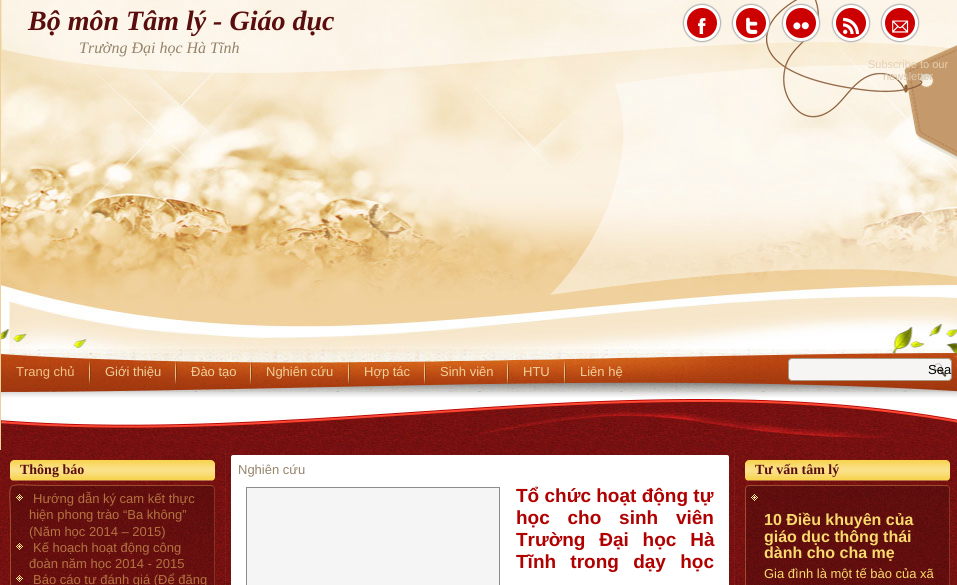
#include <cairo.h>
#include <math.h>
#include <stddef.h>


static void rgb(cairo_t *cr, int r, int g, int b)
{
	cairo_set_source_rgb(cr, r / 255.0, g / 255.0, b / 255.0);
}

static void face(cairo_t *cr, const char *family, double size, int italic, int bold)
{
	cairo_select_font_face(cr, family, italic ? CAIRO_FONT_SLANT_ITALIC : CAIRO_FONT_SLANT_NORMAL,
		bold ? CAIRO_FONT_WEIGHT_BOLD : CAIRO_FONT_WEIGHT_NORMAL);
	cairo_set_font_size(cr, size);
}

static void label(cairo_t *cr, double x, double y, const char *s)
{
	cairo_move_to(cr, x, y);
	cairo_show_text(cr, s);
}

static void tracked(cairo_t *cr, double x, double y, const char *s, double letter, double word)
{
	cairo_move_to(cr, x, y);
	while (*s) {
		char ch[5] = {0};
		int n = 0;
		do ch[n++] = *s++; while ((*s & 0xC0) == 0x80);
		cairo_show_text(cr, ch);
		cairo_rel_move_to(cr, letter + word * (*ch == ' '), 0);
	}
}

static void rect(cairo_t *cr, double x, double y, double w, double h)
{
	cairo_rectangle(cr, x, y, w, h);
	cairo_fill(cr);
}

static void rrect(cairo_t *cr, double x, double y, double w, double h, double r)
{
	cairo_new_sub_path(cr);
	cairo_arc(cr, x + w - r, y + h - r, r, 0, M_PI / 2);
	cairo_arc(cr, x + r, y + h - r, r, M_PI / 2, M_PI);
	cairo_arc(cr, x + r, y + r, r, M_PI, 1.5 * M_PI);
	cairo_arc(cr, x + w - r, y + r, r, 1.5 * M_PI, 2 * M_PI);
	cairo_close_path(cr);
}

static void soft_shadow(cairo_t *cr, double x, double y, double w, double h, double r, double blur, double alpha)
{
	cairo_push_group_with_content(cr, CAIRO_CONTENT_ALPHA);
	cairo_set_operator(cr, CAIRO_OPERATOR_SOURCE);
	for (int i = 15; i >= -15 && fmin(w, h) + blur * i / 3 > 0; i -= 2) {
		double e = blur * i / 6;
		cairo_set_source_rgba(cr, 0, 0, 0, alpha * erfc((i - 1) / 8.5) / 2);
		rrect(cr, x - e, y - e, w + 2 * e, h + 2 * e, fmax(0, fmin(r + e + blur * .6, fmin(w, h) / 2 + e)));
		cairo_fill(cr);
	}
	cairo_pattern_t *soft = cairo_pop_group(cr);
	cairo_mask(cr, soft);
	cairo_pattern_destroy(soft);
}

static void image(cairo_t *cr, const char *path, double x, double y, double w, double h)
{
	cairo_surface_t *image = cairo_image_surface_create_from_png(path);
	cairo_save(cr);
	cairo_set_source_surface(cr, image, x, y);
	cairo_rectangle(cr, x, y, w, h);
	cairo_fill(cr);
	cairo_restore(cr);
	cairo_surface_destroy(image);
}

static void draw(cairo_t *cr) {
	cairo_pattern_t *gradient;
	rgb(cr, 240, 208, 153);
	cairo_paint(cr);
	image(cr, "image0.png", 1, 0, 956, 450);
	image(cr, "image1.png", 2, 0, 955, 73);
	image(cr, "image3.png", 550, 65, 407, 230);
	image(cr, "image2.png", 766, 0, 191, 160);
	face(cr, "Liberation Serif", 28, 1, 1);
	rgb(cr, 89, 13, 13);
	label(cr, 28, 30, "Bộ môn Tâm lý - Giáo dục");
	face(cr, "Liberation Serif", 16, 1, 0);
	rgb(cr, 149, 131, 106);
	label(cr, 79, 53, "Trường Đại học Hà Tĩnh");
	rgb(cr, 175, 175, 175);
	soft_shadow(cr, 683, 4, 38, 38, 19, 0.5, 1);
	rgb(cr, 204, 0, 0);
	cairo_arc(cr, 702, 23, 16.5, 0, 2 * M_PI);
	cairo_fill_preserve(cr);
	rgb(cr, 255, 255, 255);
	cairo_set_line_width(cr, 3);
	cairo_stroke(cr);
	image(cr, "image4.png", 698, 18, 8, 16);
	rgb(cr, 175, 175, 175);
	soft_shadow(cr, 732, 4, 38, 38, 19, 0.5, 1);
	rgb(cr, 204, 0, 0);
	cairo_arc(cr, 751, 23, 16.5, 0, 2 * M_PI);
	cairo_fill_preserve(cr);
	rgb(cr, 255, 255, 255);
	cairo_stroke(cr);
	image(cr, "image5.png", 746, 17, 12, 17);
	rgb(cr, 175, 175, 175);
	soft_shadow(cr, 782, 4, 38, 38, 19, 0.5, 1);
	rgb(cr, 204, 0, 0);
	cairo_arc(cr, 801, 23, 16.5, 0, 2 * M_PI);
	cairo_fill_preserve(cr);
	rgb(cr, 255, 255, 255);
	cairo_stroke(cr);
	image(cr, "image6.png", 793, 22, 16, 8);
	rgb(cr, 175, 175, 175);
	soft_shadow(cr, 832, 4, 38, 38, 19, 0.5, 1);
	rgb(cr, 204, 0, 0);
	cairo_arc(cr, 851, 23, 16.5, 0, 2 * M_PI);
	cairo_fill_preserve(cr);
	rgb(cr, 255, 255, 255);
	cairo_stroke(cr);
	image(cr, "image7.png", 843, 17, 17, 17);
	rgb(cr, 175, 175, 175);
	soft_shadow(cr, 881, 4, 38, 38, 19, 0.5, 1);
	rgb(cr, 204, 0, 0);
	cairo_arc(cr, 900, 23, 16.5, 0, 2 * M_PI);
	cairo_fill_preserve(cr);
	rgb(cr, 255, 255, 255);
	cairo_stroke(cr);
	image(cr, "image8.png", 892, 20, 17, 13);
	face(cr, "Liberation Sans", 11, 0, 0);
	rgb(cr, 229, 207, 178);
	label(cr, 868, 68, "Subscribe to our");
	rgb(cr, 221, 200, 173);
	label(cr, 883, 80, "newsletter");
	face(cr, "Liberation Sans", 13, 0, 0);
	rgb(cr, 240, 197, 132);
	label(cr, 16, 376, "Trang chủ");
	image(cr, "image9.png", 89, 361, 2, 23);
	rgb(cr, 240, 208, 153);
	label(cr, 105, 376, "Giới thiệu");
	image(cr, "image10.png", 175, 361, 2, 23);
	label(cr, 191, 376, "Đào tạo");
	image(cr, "image11.png", 250, 361, 2, 23);
	label(cr, 266, 376, "Nghiên cứu");
	image(cr, "image12.png", 348, 361, 2, 23);
	label(cr, 364, 376, "Hợp tác");
	image(cr, "image13.png", 424, 361, 2, 23);
	label(cr, 440, 376, "Sinh viên");
	image(cr, "image14.png", 507, 361, 2, 23);
	label(cr, 523, 376, "HTU");
	image(cr, "image15.png", 564, 361, 2, 23);
	label(cr, 580, 376, "Liên hệ");
	rgb(cr, 246, 245, 243);
	rrect(cr, 788.5, 358.5, 163, 22, 3.5);
	cairo_fill_preserve(cr);
	rgb(cr, 167, 154, 134);
	cairo_set_line_width(cr, 1);
	cairo_stroke(cr);
	image(cr, "image16.png", 933, 363, 14, 14);
	rgb(cr, 0, 0, 0);
	label(cr, 928, 374, "Sea");
	image(cr, "image17.png", 0, 450, 957, 135);
	cairo_new_path(cr);
	cairo_move_to(cr, 225.5, 450);
	cairo_line_to(cr, 225.5, 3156);
	cairo_set_source_rgba(cr, 0.941, 0.808, 0.561, 0.1);
	cairo_set_dash(cr, (double[]){1, 1}, 2, 0);
	cairo_stroke(cr);
	cairo_save(cr);
	rrect(cr, 10, 460, 205, 21, 4);
	cairo_clip(cr);
	gradient = cairo_pattern_create_linear(113, 460, 113, 480);
	cairo_pattern_add_color_stop_rgba(gradient, 0, 0.969, 0.824, 0.29, 1);
	cairo_pattern_add_color_stop_rgba(gradient, 0.4, 0.98, 0.878, 0.522, 1);
	cairo_pattern_add_color_stop_rgba(gradient, 0.5, 0.98, 0.886, 0.537, 1);
	cairo_pattern_add_color_stop_rgba(gradient, 0.6, 0.98, 0.878, 0.522, 1);
	cairo_pattern_add_color_stop_rgba(gradient, 1, 0.969, 0.824, 0.29, 1);
	cairo_set_source(cr, gradient);
	cairo_pattern_destroy(gradient);
	cairo_new_path(cr);
	cairo_move_to(cr, 14, 460);
	cairo_line_to(cr, 211, 460);
	cairo_curve_to(cr, 213, 460, 215, 462, 215, 464);
	cairo_line_to(cr, 215, 480);
	cairo_line_to(cr, 10, 480);
	cairo_line_to(cr, 10, 464);
	cairo_curve_to(cr, 10, 462, 12, 460, 14, 460);
	cairo_close_path(cr);
	cairo_fill(cr);
	cairo_restore(cr);
	rgb(cr, 180, 115, 65);
	rect(cr, 12, 480, 201, 1);
	face(cr, "Liberation Serif", 14, 0, 1);
	rgb(cr, 89, 13, 13);
	label(cr, 20, 474, "Thông báo");
	cairo_new_path(cr);
	cairo_move_to(cr, 213.5, 486.5);
	cairo_line_to(cr, 214.5, 489);
	cairo_line_to(cr, 214.5, 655);
	cairo_curve_to(cr, 214.5, 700.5, 224, 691.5, 178, 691.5);
	cairo_line_to(cr, 14, 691.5);
	cairo_line_to(cr, 11.5, 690.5);
	cairo_set_source_rgba(cr, 0.651, 0.569, 0.282, 0.3);
	cairo_set_dash(cr, NULL, 0, 0);
	cairo_stroke(cr);
	cairo_new_path(cr);
	cairo_move_to(cr, 11.5, 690.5);
	cairo_line_to(cr, 10.5, 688);
	cairo_line_to(cr, 10.5, 522);
	cairo_curve_to(cr, 10.5, 476.5, 1, 485.5, 47, 485.5);
	cairo_line_to(cr, 211, 485.5);
	cairo_line_to(cr, 213.5, 486.5);
	cairo_set_source_rgba(cr, 0.976, 0.855, 0.424, 0.3);
	cairo_stroke(cr);
	image(cr, "image18.png", 16, 494, 7, 7);
	face(cr, "Liberation Sans", 13, 0, 0);
	rgb(cr, 180, 115, 65);
	label(cr, 33, 503, "Hướng dẫn ký cam kết thực");
	label(cr, 29, 519, "hiện phong trào “Ba không”");
	label(cr, 29, 536, "(Năm học 2014 – 2015)");
	image(cr, "image19.png", 16, 543, 7, 7);
	label(cr, 33, 552, "Kế hoạch hoạt động công");
	label(cr, 29, 568, "đoàn năm học 2014 - 2015");
	image(cr, "image20.png", 16, 575, 7, 7);
	label(cr, 33, 584, "Báo cáo tự đánh giá (Để đăng");
	rgb(cr, 255, 255, 255);
	rrect(cr, 231, 455, 498, 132, 2);
	cairo_fill(cr);
	rgb(cr, 149, 131, 106);
	label(cr, 238, 474, "Nghiên cứu");
	rgb(cr, 246, 245, 245);
	cairo_rectangle(cr, 246.5, 487.5, 253, 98);
	cairo_fill_preserve(cr);
	rgb(cr, 142, 140, 140);
	cairo_stroke(cr);
	face(cr, "Liberation Sans", 19, 0, 1);
	rgb(cr, 176, 0, 0);
	label(cr, 516, 502, "Tổ chức hoạt động tự");
	tracked(cr, 516, 524, "học cho sinh viên", 0, 12.5);
	tracked(cr, 516, 546, "Trường Đại học Hà", 0, 8.5);
	tracked(cr, 516, 568, "Tĩnh trong dạy học", 0, 9);
	cairo_new_path(cr);
	cairo_move_to(cr, 734.5, 450);
	cairo_line_to(cr, 734.5, 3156);
	cairo_set_source_rgba(cr, 0.941, 0.808, 0.561, 0.1);
	cairo_set_dash(cr, (double[]){1, 1}, 2, 0);
	cairo_stroke(cr);
	cairo_save(cr);
	rrect(cr, 745, 460, 205, 21, 4);
	cairo_clip(cr);
	gradient = cairo_pattern_create_linear(848, 460, 848, 480);
	cairo_pattern_add_color_stop_rgba(gradient, 0, 0.969, 0.824, 0.29, 1);
	cairo_pattern_add_color_stop_rgba(gradient, 0.4, 0.98, 0.878, 0.522, 1);
	cairo_pattern_add_color_stop_rgba(gradient, 0.5, 0.98, 0.886, 0.537, 1);
	cairo_pattern_add_color_stop_rgba(gradient, 0.6, 0.98, 0.878, 0.522, 1);
	cairo_pattern_add_color_stop_rgba(gradient, 1, 0.969, 0.824, 0.29, 1);
	cairo_set_source(cr, gradient);
	cairo_pattern_destroy(gradient);
	cairo_new_path(cr);
	cairo_move_to(cr, 749, 460);
	cairo_line_to(cr, 946, 460);
	cairo_curve_to(cr, 948, 460, 950, 462, 950, 464);
	cairo_line_to(cr, 950, 480);
	cairo_line_to(cr, 745, 480);
	cairo_line_to(cr, 745, 464);
	cairo_curve_to(cr, 745, 462, 747, 460, 749, 460);
	cairo_close_path(cr);
	cairo_fill(cr);
	cairo_restore(cr);
	rgb(cr, 180, 115, 65);
	rect(cr, 747, 480, 201, 1);
	face(cr, "Liberation Serif", 14, 0, 1);
	rgb(cr, 89, 13, 13);
	label(cr, 755, 474, "Tư vấn tâm lý");
	cairo_new_path(cr);
	cairo_move_to(cr, 948.5, 486.5);
	cairo_curve_to(cr, 949, 487, 949.5, 488, 949.5, 489);
	cairo_line_to(cr, 949.5, 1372);
	cairo_curve_to(cr, 949.5, 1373, 949, 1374, 948.5, 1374.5);
	cairo_curve_to(cr, 948, 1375, 947, 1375.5, 946, 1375.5);
	cairo_line_to(cr, 749, 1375.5);
	cairo_curve_to(cr, 748, 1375.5, 747, 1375, 746.5, 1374.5);
	cairo_set_source_rgba(cr, 0.651, 0.569, 0.282, 0.3);
	cairo_set_dash(cr, NULL, 0, 0);
	cairo_stroke(cr);
	cairo_new_path(cr);
	cairo_move_to(cr, 746.5, 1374.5);
	cairo_curve_to(cr, 746, 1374, 745.5, 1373, 745.5, 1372);
	cairo_line_to(cr, 745.5, 489);
	cairo_curve_to(cr, 745.5, 488, 746, 487, 746.5, 486.5);
	cairo_curve_to(cr, 747, 486, 748, 485.5, 749, 485.5);
	cairo_line_to(cr, 946, 485.5);
	cairo_curve_to(cr, 947, 485.5, 948, 486, 948.5, 486.5);
	cairo_set_source_rgba(cr, 0.976, 0.855, 0.424, 0.3);
	cairo_stroke(cr);
	image(cr, "image21.png", 751, 494, 7, 7);
	face(cr, "Liberation Sans", 16, 0, 1);
	rgb(cr, 249, 218, 108);
	label(cr, 764, 525, "10 Điều khuyên của");
	label(cr, 764, 542, "giáo dục thông thái");
	label(cr, 764, 558, "dành cho cha mẹ");
	face(cr, "Liberation Sans", 13, 0, 0);
	label(cr, 764, 578, "Gia đình là một tế bào của xã");
}

int main(void) {
	cairo_surface_t *surface = cairo_image_surface_create(CAIRO_FORMAT_RGB24, 957, 585);
	cairo_t *cr = cairo_create(surface);
	cairo_font_options_t *options = cairo_font_options_create();
	cairo_font_options_set_hint_metrics(options, CAIRO_HINT_METRICS_OFF);
	cairo_font_options_set_hint_style(options, CAIRO_HINT_STYLE_NONE);
	cairo_set_font_options(cr, options);
	cairo_set_miter_limit(cr, 4);
	draw(cr);
	cairo_surface_write_to_png(surface, "render.png");
	cairo_font_options_destroy(options);
	cairo_destroy(cr);
	cairo_surface_destroy(surface);
	return 0;
}
